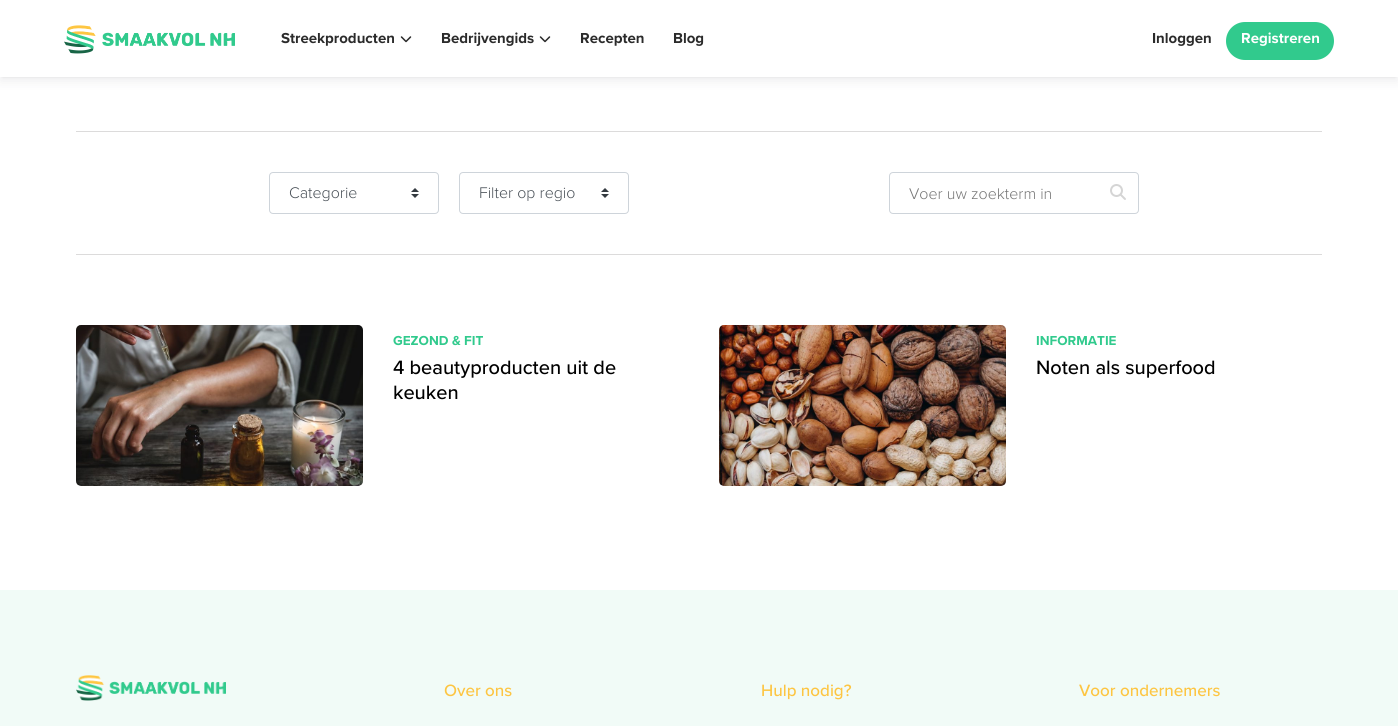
#include <cairo.h>
#include <math.h>
#include <stddef.h>


static void rgb(cairo_t *cr, int r, int g, int b)
{
	cairo_set_source_rgb(cr, r / 255.0, g / 255.0, b / 255.0);
}

static void face(cairo_t *cr, const char *family, double size, int italic, int bold)
{
	cairo_select_font_face(cr, family, italic ? CAIRO_FONT_SLANT_ITALIC : CAIRO_FONT_SLANT_NORMAL,
		bold ? CAIRO_FONT_WEIGHT_BOLD : CAIRO_FONT_WEIGHT_NORMAL);
	cairo_set_font_size(cr, size);
}

static void label(cairo_t *cr, double x, double y, const char *s)
{
	cairo_move_to(cr, x, y);
	cairo_show_text(cr, s);
}

static void rect(cairo_t *cr, double x, double y, double w, double h)
{
	cairo_rectangle(cr, x, y, w, h);
	cairo_fill(cr);
}

static void rrect(cairo_t *cr, double x, double y, double w, double h, double r)
{
	cairo_new_sub_path(cr);
	cairo_arc(cr, x + w - r, y + h - r, r, 0, M_PI / 2);
	cairo_arc(cr, x + r, y + h - r, r, M_PI / 2, M_PI);
	cairo_arc(cr, x + r, y + r, r, M_PI, 1.5 * M_PI);
	cairo_arc(cr, x + w - r, y + r, r, 1.5 * M_PI, 2 * M_PI);
	cairo_close_path(cr);
}

static void soft_shadow(cairo_t *cr, double x, double y, double w, double h, double r, double blur, double alpha)
{
	cairo_push_group_with_content(cr, CAIRO_CONTENT_ALPHA);
	cairo_set_operator(cr, CAIRO_OPERATOR_SOURCE);
	for (int i = 15; i >= -15 && fmin(w, h) + blur * i / 3 > 0; i -= 2) {
		double e = blur * i / 6;
		cairo_set_source_rgba(cr, 0, 0, 0, alpha * erfc((i - 1) / 8.5) / 2);
		rrect(cr, x - e, y - e, w + 2 * e, h + 2 * e, fmax(0, fmin(r + e + blur * .6, fmin(w, h) / 2 + e)));
		cairo_fill(cr);
	}
	cairo_pattern_t *soft = cairo_pop_group(cr);
	cairo_mask(cr, soft);
	cairo_pattern_destroy(soft);
}

static void image(cairo_t *cr, const char *path, double x, double y, double w, double h)
{
	cairo_surface_t *image = cairo_image_surface_create_from_png(path);
	cairo_save(cr);
	cairo_set_source_surface(cr, image, x, y);
	cairo_rectangle(cr, x, y, w, h);
	cairo_fill(cr);
	cairo_restore(cr);
	cairo_surface_destroy(image);
}

static void draw(cairo_t *cr) {
	rgb(cr, 255, 255, 255);
	cairo_paint(cr);
	rgb(cr, 31, 27, 45);
	soft_shadow(cr, 0, 4, 1398, 77, 0, 6, 0.08);
	soft_shadow(cr, 2, 4, 1394, 73, 0, 1, 0.08);
	rgb(cr, 255, 255, 255);
	rect(cr, 0, 0, 1398, 77);
	image(cr, "image0.png", 64, 25, 171, 29);
	face(cr, "Proxima Nova", 15, 0, 1);
	rgb(cr, 43, 43, 43);
	label(cr, 281, 43, "Streekproducten");
	image(cr, "image1.png", 400, 36, 12, 7);
	label(cr, 441, 43, "Bedrijvengids");
	image(cr, "image1.png", 539, 36, 12, 7);
	label(cr, 580, 43, "Recepten");
	label(cr, 673, 43, "Blog");
	label(cr, 1152, 43, "Inloggen");
	rgb(cr, 49, 202, 141);
	rrect(cr, 1226, 22, 108, 38, 19);
	cairo_fill(cr);
	rgb(cr, 255, 255, 255);
	label(cr, 1241, 43, "Registreren");
	rgb(cr, 220, 219, 219);
	rect(cr, 76, 131, 1246, 1);
	rect(cr, 76, 254, 1246, 1);
	image(cr, "image2.png", 411, 188, 8, 10);
	rrect(cr, 269.5, 172.5, 169, 41, 3.5);
	rgb(cr, 206, 212, 218);
	cairo_set_line_width(cr, 1);
	cairo_stroke(cr);
	face(cr, "Proxima Nova Light", 16, 0, 0);
	rgb(cr, 73, 80, 87);
	label(cr, 289, 198, "Categorie");
	image(cr, "image2.png", 601, 188, 8, 10);
	rrect(cr, 459.5, 172.5, 169, 41, 3.5);
	rgb(cr, 206, 212, 218);
	cairo_stroke(cr);
	rgb(cr, 73, 80, 87);
	label(cr, 479, 198, "Filter op regio");
	image(cr, "image3.png", 1110, 184, 16, 16);
	rrect(cr, 889.5, 172.5, 249, 41, 3.5);
	rgb(cr, 206, 212, 218);
	cairo_stroke(cr);
	rgb(cr, 117, 117, 117);
	label(cr, 909, 199, "Voer uw zoekterm in");
	image(cr, "image4.png", 76, 325, 287, 161);
	face(cr, "Proxima Nova", 13.5, 0, 1);
	rgb(cr, 49, 202, 141);
	label(cr, 393, 345, "GEZOND & FIT");
	face(cr, "Proxima Nova Medium", 20, 0, 0);
	rgb(cr, 0, 0, 0);
	label(cr, 393, 374, "4 beautyproducten uit de");
	label(cr, 393, 399, "keuken");
	image(cr, "image5.png", 719, 325, 287, 161);
	face(cr, "Proxima Nova", 13.5, 0, 1);
	rgb(cr, 49, 202, 141);
	label(cr, 1036, 345, "INFORMATIE");
	face(cr, "Proxima Nova Medium", 20, 0, 0);
	rgb(cr, 0, 0, 0);
	label(cr, 1036, 374, "Noten als superfood");
	rgb(cr, 241, 251, 247);
	rect(cr, 0, 590, 1398, 136);
	image(cr, "image6.png", 76, 675, 150, 26);
	face(cr, "Proxima Nova Medium", 17, 0, 0);
	rgb(cr, 253, 197, 66);
	label(cr, 444, 696, "Over ons");
	label(cr, 761, 696, "Hulp nodig?");
	label(cr, 1079, 696, "Voor ondernemers");
}

int main(void) {
	cairo_surface_t *surface = cairo_image_surface_create(CAIRO_FORMAT_RGB24, 1398, 726);
	cairo_t *cr = cairo_create(surface);
	cairo_font_options_t *options = cairo_font_options_create();
	cairo_font_options_set_hint_metrics(options, CAIRO_HINT_METRICS_OFF);
	cairo_font_options_set_hint_style(options, CAIRO_HINT_STYLE_NONE);
	cairo_set_font_options(cr, options);
	cairo_set_miter_limit(cr, 4);
	draw(cr);
	cairo_surface_write_to_png(surface, "render.png");
	cairo_font_options_destroy(options);
	cairo_destroy(cr);
	cairo_surface_destroy(surface);
	return 0;
}
